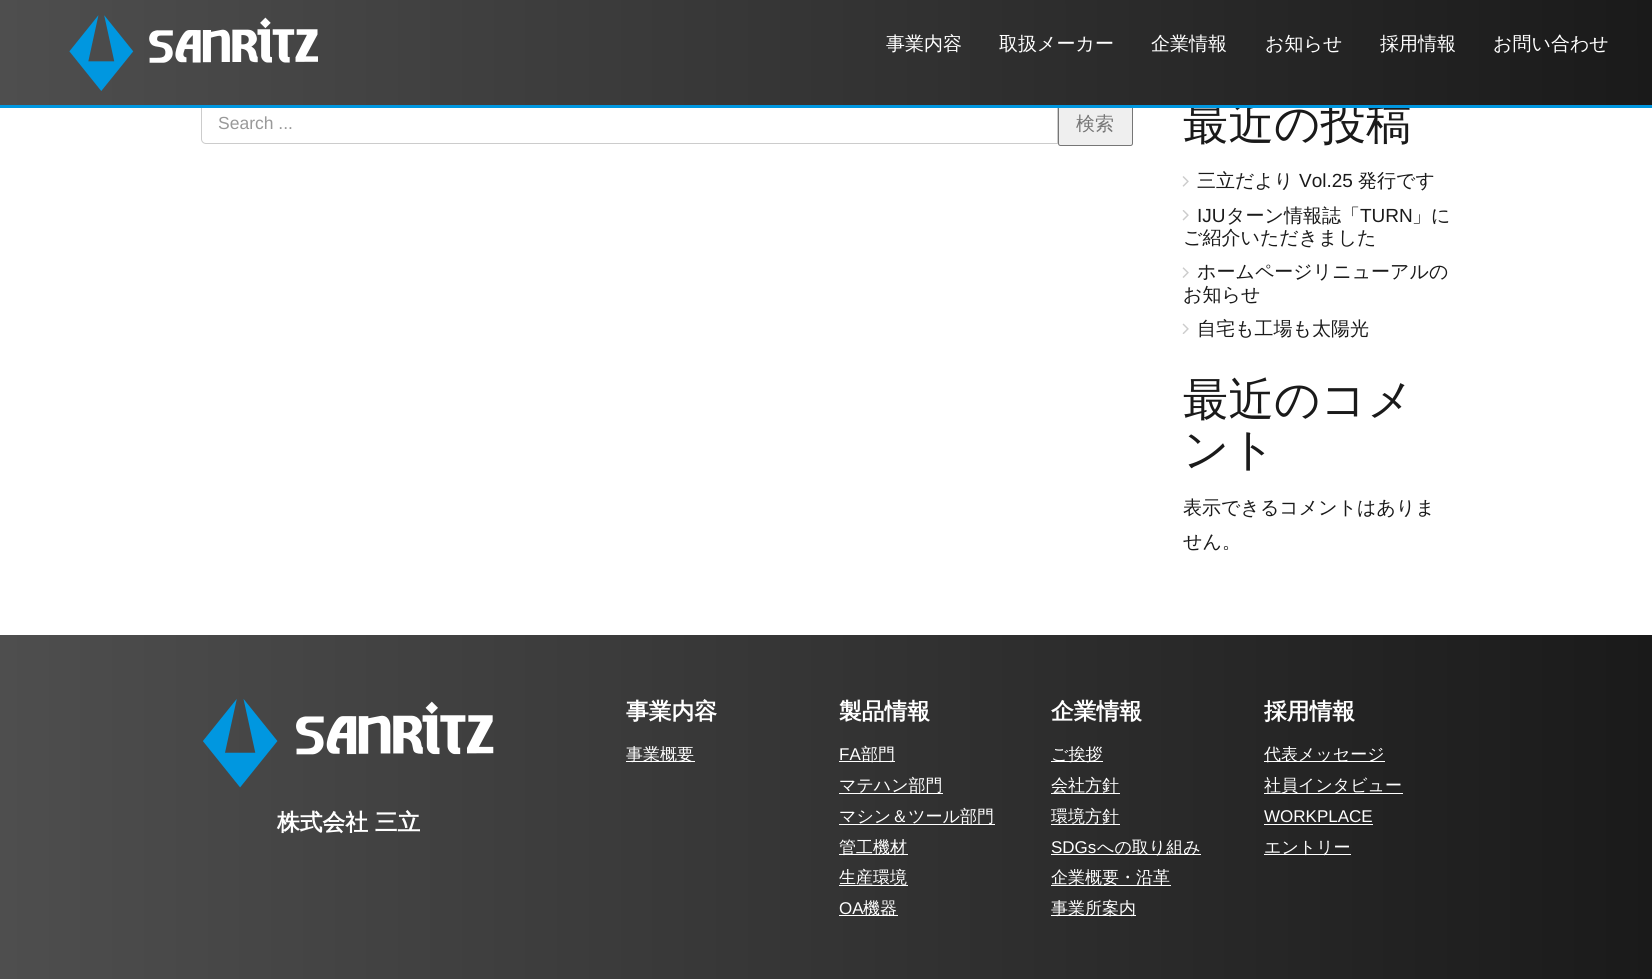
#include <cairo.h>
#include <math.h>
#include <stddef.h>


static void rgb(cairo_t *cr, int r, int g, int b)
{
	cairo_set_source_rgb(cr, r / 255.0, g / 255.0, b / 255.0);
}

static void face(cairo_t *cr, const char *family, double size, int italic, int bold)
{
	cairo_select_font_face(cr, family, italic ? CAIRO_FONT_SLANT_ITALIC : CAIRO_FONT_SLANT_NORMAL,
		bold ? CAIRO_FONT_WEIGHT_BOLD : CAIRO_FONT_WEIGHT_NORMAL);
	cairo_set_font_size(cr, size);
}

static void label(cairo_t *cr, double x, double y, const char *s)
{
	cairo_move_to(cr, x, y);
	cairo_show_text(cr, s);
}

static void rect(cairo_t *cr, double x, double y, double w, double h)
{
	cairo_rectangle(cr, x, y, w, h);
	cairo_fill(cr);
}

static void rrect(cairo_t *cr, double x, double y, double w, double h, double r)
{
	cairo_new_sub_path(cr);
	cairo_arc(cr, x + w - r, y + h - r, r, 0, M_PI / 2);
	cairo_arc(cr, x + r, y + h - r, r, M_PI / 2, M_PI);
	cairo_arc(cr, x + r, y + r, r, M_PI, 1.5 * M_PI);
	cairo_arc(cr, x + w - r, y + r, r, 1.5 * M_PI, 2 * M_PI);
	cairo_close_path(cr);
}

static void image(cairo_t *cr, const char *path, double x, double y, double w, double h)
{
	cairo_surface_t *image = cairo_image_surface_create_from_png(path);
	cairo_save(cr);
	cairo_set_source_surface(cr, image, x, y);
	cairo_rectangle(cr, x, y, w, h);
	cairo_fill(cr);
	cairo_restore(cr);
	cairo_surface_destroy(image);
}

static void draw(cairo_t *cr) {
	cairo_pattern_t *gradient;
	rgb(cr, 255, 255, 255);
	cairo_paint(cr);
	cairo_new_path(cr);
	cairo_move_to(cr, 206, 101.5);
	cairo_line_to(cr, 1057.5, 101.5);
	cairo_line_to(cr, 1057.5, 143.5);
	cairo_line_to(cr, 206, 143.5);
	cairo_curve_to(cr, 203.5, 143.5, 201.5, 141.5, 201.5, 139);
	cairo_line_to(cr, 201.5, 106);
	cairo_curve_to(cr, 201.5, 103.5, 203.5, 101.5, 206, 101.5);
	cairo_close_path(cr);
	rgb(cr, 204, 204, 204);
	cairo_set_line_width(cr, 1);
	cairo_stroke(cr);
	rgb(cr, 239, 239, 239);
	rrect(cr, 1058.5, 101.5, 74, 44, 2);
	cairo_fill_preserve(cr);
	rgb(cr, 118, 118, 118);
	cairo_stroke(cr);
	face(cr, "WenQuanYi Zen Hei Medium", 45.5, 0, 0);
	rgb(cr, 26, 26, 26);
	label(cr, 1183, 139, "最近の投稿");
	gradient = cairo_pattern_create_linear(0, 53, 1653, 52);
	cairo_pattern_add_color_stop_rgba(gradient, 0, 0.306, 0.306, 0.306, 1);
	cairo_pattern_add_color_stop_rgba(gradient, 1, 0.102, 0.102, 0.102, 1);
	cairo_set_source(cr, gradient);
	cairo_pattern_destroy(gradient);
	rect(cr, 0, 0, 1652, 105);
	rgb(cr, 0, 151, 224);
	rect(cr, 0, 105, 1652, 3);
	image(cr, "image0.png", 69, 15, 249, 76);
	face(cr, "WenQuanYi Zen Hei Medium", 19, 0, 0);
	rgb(cr, 255, 255, 255);
	label(cr, 886, 50, "事業内容");
	label(cr, 999, 50, "取扱メーカー");
	label(cr, 1151, 50, "企業情報");
	label(cr, 1265, 50, "お知らせ");
	label(cr, 1380, 50, "採用情報");
	label(cr, 1493, 50, "お問い合わせ");
	face(cr, "Liberation Sans", 17.5, 0, 0);
	rgb(cr, 153, 153, 153);
	label(cr, 218, 129, "Search ...");
	face(cr, "WenQuanYi Zen Hei Medium", 19, 0, 0);
	rgb(cr, 119, 119, 119);
	label(cr, 1076, 130, "検索");
	image(cr, "image1.png", 1182, 176, 7, 11);
	rgb(cr, 26, 26, 26);
	label(cr, 1197, 187, "三立だより");
	face(cr, "Liberation Sans", 19, 0, 0);
	label(cr, 1299, 187, "Vol.25");
	face(cr, "WenQuanYi Zen Hei Medium", 19, 0, 0);
	label(cr, 1358, 187, "発行です");
	image(cr, "image2.png", 1182, 210, 7, 11);
	face(cr, "Liberation Sans", 19, 0, 0);
	label(cr, 1197, 222, "IJU");
	face(cr, "WenQuanYi Zen Hei Medium", 19, 0, 0);
	label(cr, 1226, 222, "ターン情報誌「");
	face(cr, "Liberation Sans", 19, 0, 0);
	label(cr, 1360, 222, "TURN");
	face(cr, "WenQuanYi Zen Hei Medium", 19, 0, 0);
	label(cr, 1412, 222, "」に");
	label(cr, 1183, 244, "ご紹介いただきました");
	image(cr, "image3.png", 1182, 267, 7, 11);
	label(cr, 1197, 278, "ホームページリニューアルの");
	label(cr, 1183, 301, "お知らせ");
	image(cr, "image4.png", 1182, 323, 7, 11);
	label(cr, 1197, 335, "自宅も工場も太陽光");
	face(cr, "WenQuanYi Zen Hei Medium", 45.5, 0, 0);
	label(cr, 1183, 415, "最近のコメ");
	label(cr, 1183, 465, "ント");
	face(cr, "WenQuanYi Zen Hei Medium", 19, 0, 0);
	label(cr, 1183, 514, "表示できるコメントはありま");
	label(cr, 1183, 548, "せん。");
	gradient = cairo_pattern_create_linear(0, 811, 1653, 811);
	cairo_pattern_add_color_stop_rgba(gradient, 0, 0.306, 0.306, 0.306, 1);
	cairo_pattern_add_color_stop_rgba(gradient, 1, 0.102, 0.102, 0.102, 1);
	cairo_set_source(cr, gradient);
	cairo_pattern_destroy(gradient);
	rect(cr, 0, 635, 1652, 344);
	image(cr, "image5.png", 203, 699, 291, 89);
	face(cr, "WenQuanYi Zen Hei", 22.75, 0, 1);
	rgb(cr, 255, 255, 255);
	label(cr, 277, 830, "株式会社 三立");
	label(cr, 626, 719, "事業内容");
	rect(cr, 626, 761, 69, 1);
	face(cr, "WenQuanYi Zen Hei Medium", 17, 0, 0);
	label(cr, 626, 760, "事業概要");
	face(cr, "WenQuanYi Zen Hei", 22.75, 0, 1);
	label(cr, 839, 719, "製品情報");
	face(cr, "Liberation Sans", 17, 0, 0);
	label(cr, 839, 760, "FA");
	rect(cr, 839, 761, 56, 1);
	face(cr, "WenQuanYi Zen Hei Medium", 17, 0, 0);
	label(cr, 861, 760, "部門");
	rect(cr, 839, 793, 104, 1);
	label(cr, 839, 791, "マテハン部門");
	rect(cr, 839, 824, 156, 1);
	label(cr, 839, 822, "マシン＆ツール部門");
	rect(cr, 839, 854, 69, 1);
	label(cr, 839, 853, "管工機材");
	rect(cr, 839, 885, 69, 1);
	label(cr, 839, 883, "生産環境");
	face(cr, "Liberation Sans", 17, 0, 0);
	label(cr, 839, 914, "OA");
	rect(cr, 839, 915, 59, 1);
	face(cr, "WenQuanYi Zen Hei Medium", 17, 0, 0);
	label(cr, 863, 914, "機器");
	face(cr, "WenQuanYi Zen Hei", 22.75, 0, 1);
	label(cr, 1051, 719, "企業情報");
	rect(cr, 1051, 761, 52, 1);
	face(cr, "WenQuanYi Zen Hei Medium", 17, 0, 0);
	label(cr, 1051, 760, "ご挨拶");
	rect(cr, 1051, 793, 69, 1);
	label(cr, 1051, 791, "会社方針");
	rect(cr, 1051, 824, 69, 1);
	label(cr, 1051, 822, "環境方針");
	face(cr, "Liberation Sans", 17, 0, 0);
	label(cr, 1051, 853, "SDGs");
	rect(cr, 1051, 854, 150, 1);
	face(cr, "WenQuanYi Zen Hei Medium", 17, 0, 0);
	label(cr, 1097, 853, "への取り組み");
	rect(cr, 1051, 885, 120, 1);
	label(cr, 1051, 883, "企業概要・沿革");
	rect(cr, 1051, 915, 85, 1);
	label(cr, 1051, 914, "事業所案内");
	face(cr, "WenQuanYi Zen Hei", 22.75, 0, 1);
	label(cr, 1264, 719, "採用情報");
	rect(cr, 1264, 761, 121, 1);
	face(cr, "WenQuanYi Zen Hei Medium", 17, 0, 0);
	label(cr, 1264, 760, "代表メッセージ");
	rect(cr, 1264, 793, 139, 1);
	label(cr, 1264, 791, "社員インタビュー");
	face(cr, "Liberation Sans", 17, 0, 0);
	label(cr, 1264, 822, "WORKPLACE");
	rect(cr, 1264, 824, 109, 1);
	rect(cr, 1264, 854, 87, 1);
	face(cr, "WenQuanYi Zen Hei Medium", 17, 0, 0);
	label(cr, 1264, 853, "エントリー");
}

int main(void) {
	cairo_surface_t *surface = cairo_image_surface_create(CAIRO_FORMAT_RGB24, 1652, 979);
	cairo_t *cr = cairo_create(surface);
	cairo_font_options_t *options = cairo_font_options_create();
	cairo_font_options_set_hint_metrics(options, CAIRO_HINT_METRICS_OFF);
	cairo_font_options_set_hint_style(options, CAIRO_HINT_STYLE_NONE);
	cairo_set_font_options(cr, options);
	cairo_set_miter_limit(cr, 4);
	draw(cr);
	cairo_surface_write_to_png(surface, "render.png");
	cairo_font_options_destroy(options);
	cairo_destroy(cr);
	cairo_surface_destroy(surface);
	return 0;
}
